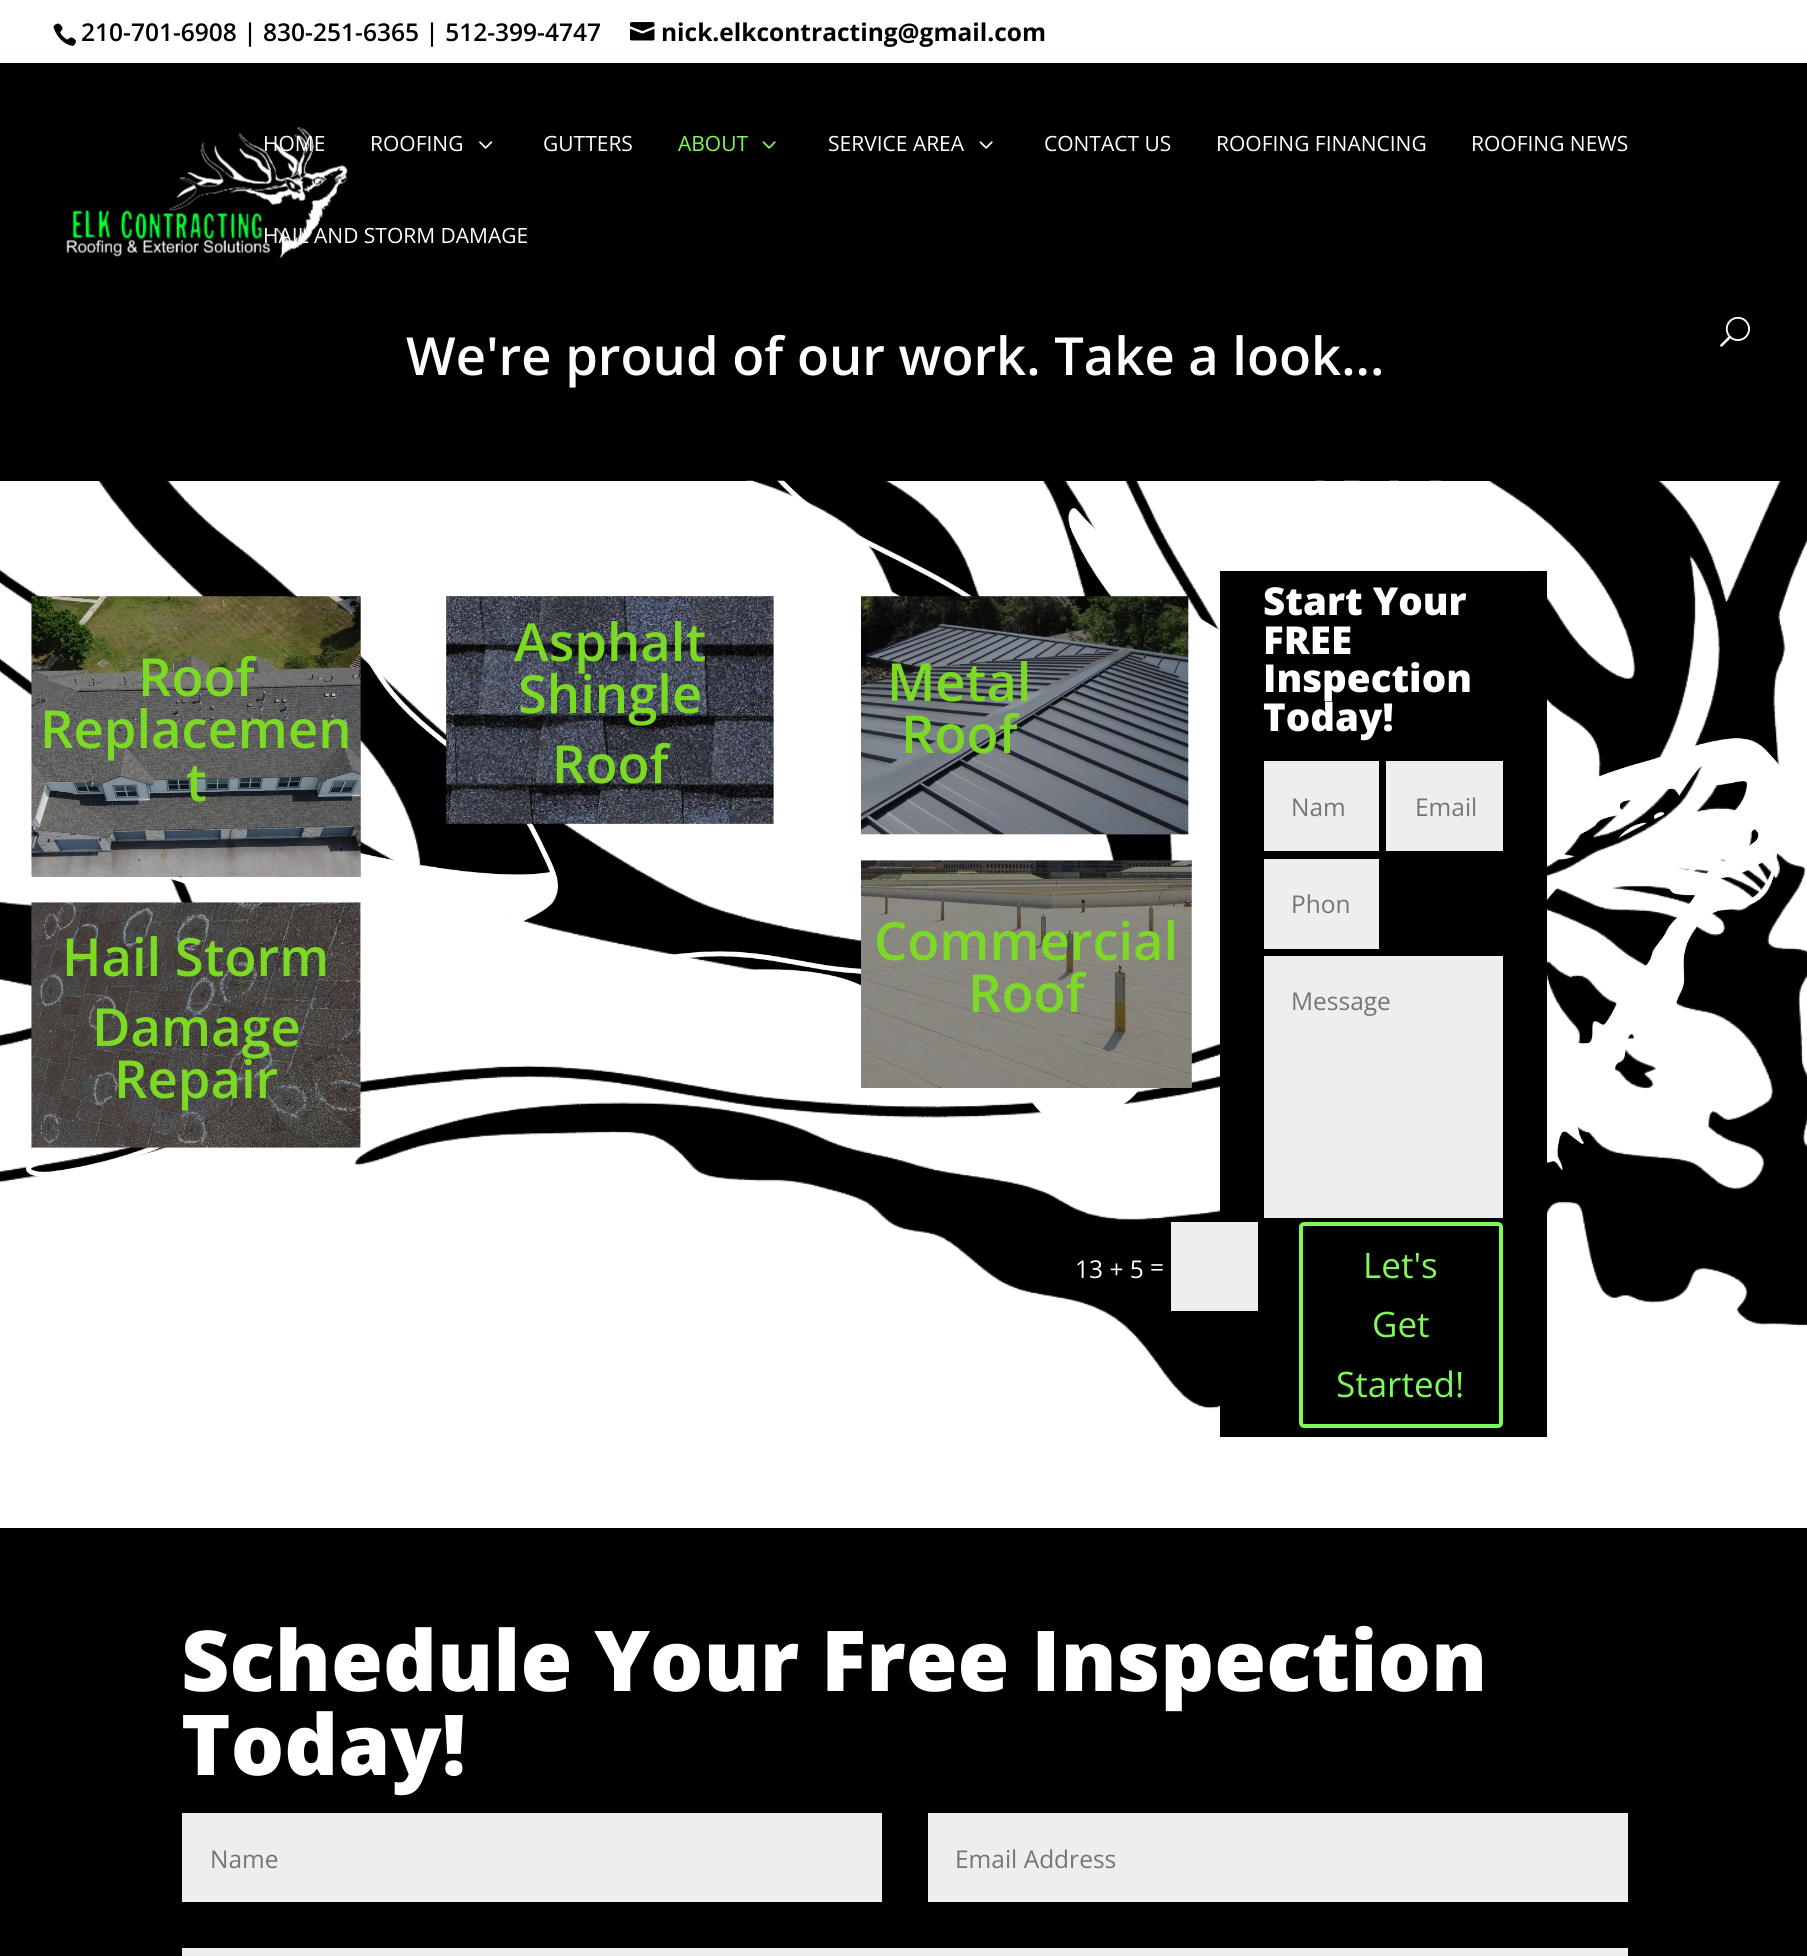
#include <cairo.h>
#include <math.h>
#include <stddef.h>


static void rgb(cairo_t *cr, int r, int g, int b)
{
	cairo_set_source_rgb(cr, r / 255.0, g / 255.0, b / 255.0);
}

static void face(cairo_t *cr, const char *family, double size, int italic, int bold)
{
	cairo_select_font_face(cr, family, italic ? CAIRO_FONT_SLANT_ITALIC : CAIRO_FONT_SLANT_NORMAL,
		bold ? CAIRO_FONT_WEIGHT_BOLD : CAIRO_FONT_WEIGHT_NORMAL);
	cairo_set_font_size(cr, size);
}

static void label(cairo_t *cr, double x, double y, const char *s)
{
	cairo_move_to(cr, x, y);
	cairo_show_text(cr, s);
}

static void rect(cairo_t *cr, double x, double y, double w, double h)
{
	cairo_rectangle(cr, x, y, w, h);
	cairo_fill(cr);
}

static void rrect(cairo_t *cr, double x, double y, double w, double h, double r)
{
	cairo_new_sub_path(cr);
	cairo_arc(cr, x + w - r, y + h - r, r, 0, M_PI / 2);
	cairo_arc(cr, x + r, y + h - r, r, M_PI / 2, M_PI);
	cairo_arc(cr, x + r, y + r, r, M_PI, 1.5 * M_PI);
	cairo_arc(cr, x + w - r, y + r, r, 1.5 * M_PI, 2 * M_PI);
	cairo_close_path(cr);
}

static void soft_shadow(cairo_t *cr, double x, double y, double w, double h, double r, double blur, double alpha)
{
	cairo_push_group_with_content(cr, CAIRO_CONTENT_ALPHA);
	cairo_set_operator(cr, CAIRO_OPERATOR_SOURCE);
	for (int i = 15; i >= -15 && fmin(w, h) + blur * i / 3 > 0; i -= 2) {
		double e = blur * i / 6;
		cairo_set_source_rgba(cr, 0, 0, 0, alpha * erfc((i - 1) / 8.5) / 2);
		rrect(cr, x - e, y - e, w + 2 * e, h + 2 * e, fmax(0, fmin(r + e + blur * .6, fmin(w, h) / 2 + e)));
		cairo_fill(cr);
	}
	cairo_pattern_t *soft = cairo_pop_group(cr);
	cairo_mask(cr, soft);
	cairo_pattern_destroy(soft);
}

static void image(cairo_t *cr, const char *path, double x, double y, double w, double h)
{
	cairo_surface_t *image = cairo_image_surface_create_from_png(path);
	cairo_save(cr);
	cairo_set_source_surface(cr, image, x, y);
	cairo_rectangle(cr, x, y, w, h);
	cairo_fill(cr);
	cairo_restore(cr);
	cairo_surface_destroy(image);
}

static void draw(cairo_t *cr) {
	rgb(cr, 255, 255, 255);
	cairo_paint(cr);
	image(cr, "image0.png", 0, 481, 1807, 928);
	rgb(cr, 0, 0, 0);
	rect(cr, 0, 322, 1807, 159);
	rgb(cr, 0, 0, 0);
	soft_shadow(cr, 0, 63, 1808, 259, 0, 6, 0.1);
	rgb(cr, 255, 255, 255);
	rect(cr, 0, 55, 1807, 8);
	image(cr, "image1.png", 53, 23, 23, 23);
	face(cr, "Open Sans SemiBold", 24.5, 0, 0);
	rgb(cr, 0, 0, 0);
	label(cr, 81, 41, "210-701-6908 | 830-251-6365 | 512-399-4747");
	image(cr, "image2.png", 630, 22, 25, 19);
	face(cr, "Open Sans", 24.5, 0, 1);
	label(cr, 661, 41, "nick.elkcontracting@gmail.com");
	rect(cr, 0, 63, 1807, 259);
	image(cr, "image3.png", 66, 127, 282, 131);
	face(cr, "Open Sans", 21, 0, 0);
	rgb(cr, 255, 255, 255);
	label(cr, 263, 151, "HOME");
	label(cr, 370, 151, "ROOFING");
	image(cr, "image4.png", 479, 141, 14, 8);
	label(cr, 543, 151, "GUTTERS");
	rgb(cr, 125, 249, 90);
	label(cr, 678, 151, "ABOUT");
	image(cr, "image5.png", 762, 141, 14, 8);
	rgb(cr, 255, 255, 255);
	label(cr, 828, 151, "SERVICE AREA");
	image(cr, "image6.png", 979, 141, 14, 8);
	label(cr, 1044, 151, "CONTACT US");
	label(cr, 1216, 151, "ROOFING FINANCING");
	label(cr, 1471, 151, "ROOFING NEWS");
	label(cr, 263, 243, "HAIL AND STORM DAMAGE");
	image(cr, "image7.png", 1720, 316, 30, 31);
	face(cr, "Open Sans SemiBold", 52.5, 0, 0);
	label(cr, 406, 375, "We're proud of our work. Take a look...");
	image(cr, "image8.png", 26, 480, 1760, 1047);
	cairo_set_source_rgba(cr, 0, 0, 0, 0.37);
	rect(cr, 32, 597, 329, 280);
	image(cr, "image9.png", 31, 596, 330, 281);
	rgb(cr, 124, 218, 36);
	label(cr, 138, 696, "Roof");
	label(cr, 40, 748, "Replacemen");
	label(cr, 186, 801, "t");
	image(cr, "image10.png", 31, 902, 330, 246);
	label(cr, 62, 976, "Hail Storm");
	label(cr, 92, 1046, "Damage");
	label(cr, 114, 1098, "Repair");
	image(cr, "image11.png", 446, 596, 328, 228);
	label(cr, 514, 661, "Asphalt");
	label(cr, 518, 713, "Shingle");
	label(cr, 552, 783, "Roof");
	image(cr, "image12.png", 861, 596, 328, 239);
	label(cr, 887, 701, "Metal");
	label(cr, 901, 753, "Roof");
	image(cr, "image13.png", 861, 860, 331, 228);
	label(cr, 874, 960, "Commercial");
	label(cr, 968, 1012, "Roof");
	rgb(cr, 0, 0, 0);
	rect(cr, 1220, 571, 327, 866);
	face(cr, "Open Sans ExtraBold", 38.5, 0, 0);
	rgb(cr, 255, 255, 255);
	label(cr, 1263, 615, "Start Your");
	label(cr, 1263, 654, "FREE");
	label(cr, 1263, 692, "Inspection");
	label(cr, 1263, 731, "Today!");
	rgb(cr, 238, 238, 238);
	rect(cr, 1264, 761, 115, 90);
	face(cr, "Open Sans", 24.5, 0, 0);
	rgb(cr, 117, 117, 117);
	label(cr, 1291, 816, "Nam");
	rgb(cr, 238, 238, 238);
	rect(cr, 1386, 761, 117, 90);
	rgb(cr, 117, 117, 117);
	label(cr, 1415, 816, "Email");
	rgb(cr, 238, 238, 238);
	rect(cr, 1264, 859, 115, 90);
	rgb(cr, 117, 117, 117);
	label(cr, 1291, 913, "Phon");
	rgb(cr, 238, 238, 238);
	rect(cr, 1264, 956, 239, 262);
	rgb(cr, 117, 117, 117);
	label(cr, 1291, 1010, "Message");
	rgb(cr, 255, 255, 255);
	label(cr, 1075, 1278, "13 + 5");
	label(cr, 1150, 1276, "=");
	rgb(cr, 238, 238, 238);
	rect(cr, 1171, 1222, 87, 89);
	rrect(cr, 1301, 1224, 200, 202, 3);
	rgb(cr, 125, 249, 90);
	cairo_set_line_width(cr, 4);
	cairo_stroke(cr);
	face(cr, "Open Sans", 35, 0, 0);
	label(cr, 1363, 1278, "Let's");
	label(cr, 1372, 1337, "Get");
	label(cr, 1336, 1397, "Started!");
	rgb(cr, 0, 0, 0);
	rect(cr, 0, 1528, 1807, 428);
	face(cr, "Open Sans ExtraBold", 84, 0, 0);
	rgb(cr, 255, 255, 255);
	label(cr, 181, 1691, "Schedule Your Free Inspection");
	label(cr, 181, 1775, "Today!");
	rgb(cr, 238, 238, 238);
	rect(cr, 182, 1813, 700, 89);
	face(cr, "Open Sans", 24.5, 0, 0);
	rgb(cr, 117, 117, 117);
	label(cr, 210, 1868, "Name");
	rgb(cr, 238, 238, 238);
	rect(cr, 928, 1813, 700, 89);
	rgb(cr, 117, 117, 117);
	label(cr, 955, 1868, "Email Address");
	rgb(cr, 238, 238, 238);
	rect(cr, 182, 1948, 1446, 8);
}

int main(void) {
	cairo_surface_t *surface = cairo_image_surface_create(CAIRO_FORMAT_RGB24, 1807, 1956);
	cairo_t *cr = cairo_create(surface);
	cairo_font_options_t *options = cairo_font_options_create();
	cairo_font_options_set_hint_metrics(options, CAIRO_HINT_METRICS_OFF);
	cairo_font_options_set_hint_style(options, CAIRO_HINT_STYLE_NONE);
	cairo_set_font_options(cr, options);
	cairo_set_miter_limit(cr, 4);
	draw(cr);
	cairo_surface_write_to_png(surface, "render.png");
	cairo_font_options_destroy(options);
	cairo_destroy(cr);
	cairo_surface_destroy(surface);
	return 0;
}
